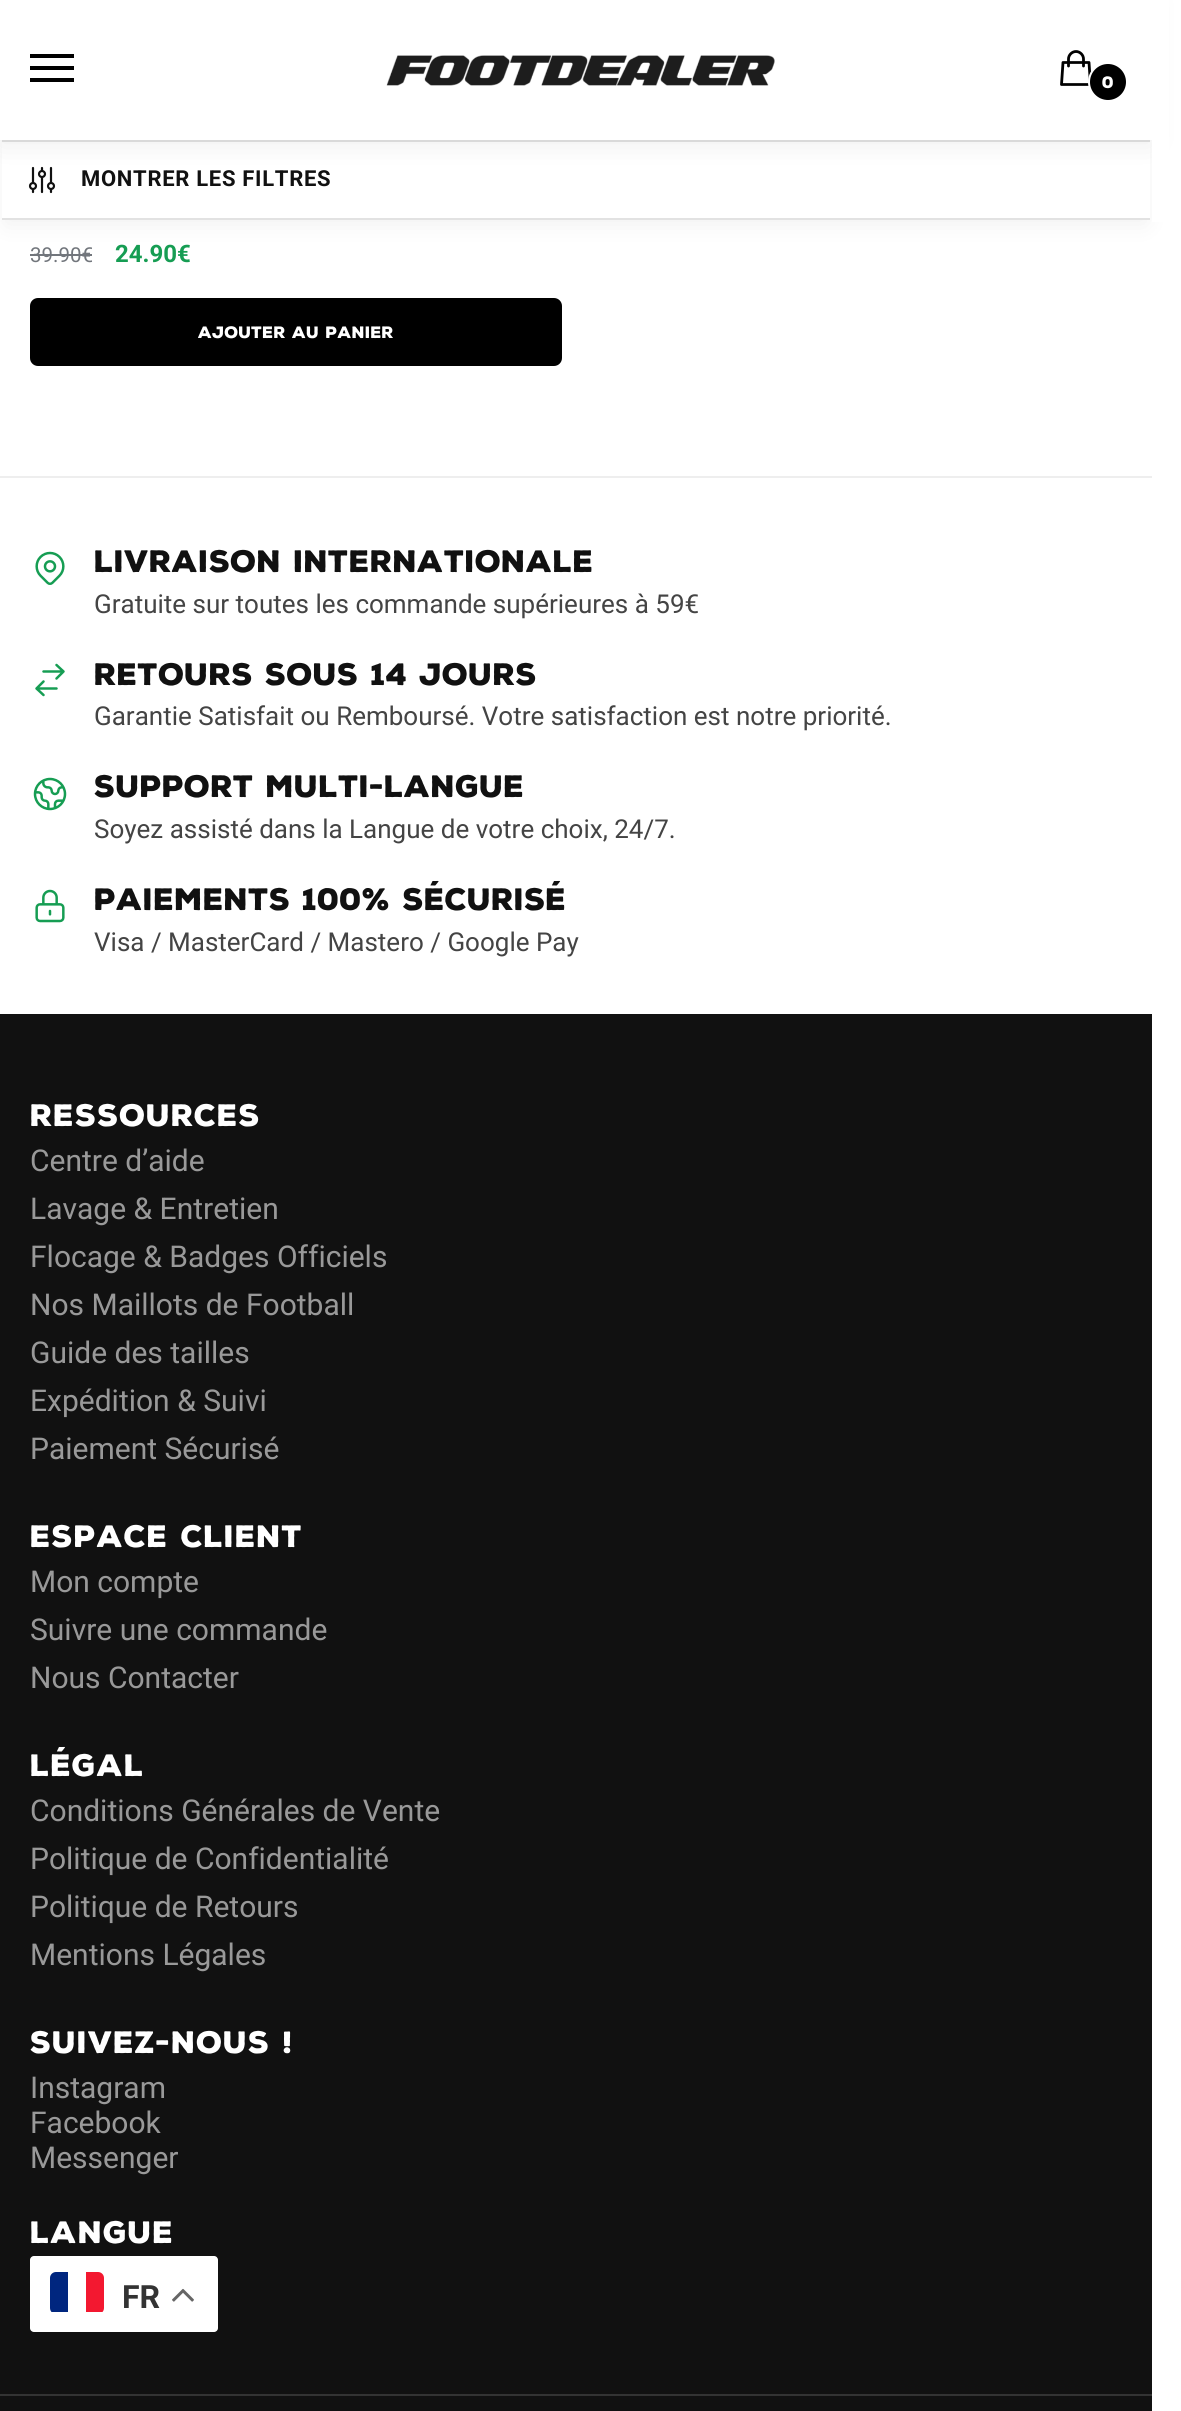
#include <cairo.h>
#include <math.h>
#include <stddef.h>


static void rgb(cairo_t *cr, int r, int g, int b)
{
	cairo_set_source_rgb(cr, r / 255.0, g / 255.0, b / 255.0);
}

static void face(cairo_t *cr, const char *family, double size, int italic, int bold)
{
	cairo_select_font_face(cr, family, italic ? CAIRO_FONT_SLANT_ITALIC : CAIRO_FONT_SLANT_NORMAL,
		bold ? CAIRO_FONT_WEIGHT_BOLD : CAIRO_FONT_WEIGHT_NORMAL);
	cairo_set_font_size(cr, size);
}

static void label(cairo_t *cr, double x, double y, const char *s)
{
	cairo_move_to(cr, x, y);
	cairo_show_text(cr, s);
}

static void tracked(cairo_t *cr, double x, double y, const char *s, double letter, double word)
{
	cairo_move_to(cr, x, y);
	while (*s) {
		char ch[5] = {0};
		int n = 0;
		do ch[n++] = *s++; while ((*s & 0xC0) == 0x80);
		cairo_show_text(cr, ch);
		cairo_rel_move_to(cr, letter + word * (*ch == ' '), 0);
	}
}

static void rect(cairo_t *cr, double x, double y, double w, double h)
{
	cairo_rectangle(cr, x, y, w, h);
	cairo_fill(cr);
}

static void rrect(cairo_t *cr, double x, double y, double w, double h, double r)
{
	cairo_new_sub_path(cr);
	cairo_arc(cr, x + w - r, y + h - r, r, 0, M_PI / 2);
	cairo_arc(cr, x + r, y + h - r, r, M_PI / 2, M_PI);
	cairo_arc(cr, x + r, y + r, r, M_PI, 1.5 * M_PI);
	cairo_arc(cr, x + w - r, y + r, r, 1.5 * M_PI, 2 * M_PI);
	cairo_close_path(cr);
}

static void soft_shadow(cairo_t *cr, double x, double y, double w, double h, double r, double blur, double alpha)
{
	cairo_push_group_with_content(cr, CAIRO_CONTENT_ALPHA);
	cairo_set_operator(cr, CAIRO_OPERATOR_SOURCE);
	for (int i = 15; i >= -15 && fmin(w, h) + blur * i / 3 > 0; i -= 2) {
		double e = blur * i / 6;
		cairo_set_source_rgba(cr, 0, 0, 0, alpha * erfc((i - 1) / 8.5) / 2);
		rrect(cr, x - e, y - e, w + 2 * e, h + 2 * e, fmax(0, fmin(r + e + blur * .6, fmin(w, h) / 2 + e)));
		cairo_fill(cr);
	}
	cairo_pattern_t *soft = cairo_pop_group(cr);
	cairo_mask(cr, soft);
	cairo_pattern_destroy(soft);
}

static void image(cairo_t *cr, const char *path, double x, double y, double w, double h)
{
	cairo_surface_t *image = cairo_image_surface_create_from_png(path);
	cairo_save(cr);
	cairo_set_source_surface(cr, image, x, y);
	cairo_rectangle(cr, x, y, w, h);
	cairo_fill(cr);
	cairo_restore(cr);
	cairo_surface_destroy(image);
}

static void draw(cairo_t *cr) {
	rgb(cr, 255, 255, 255);
	cairo_paint(cr);
	rgb(cr, 114, 118, 124);
	rect(cr, 30, 254, 62, 2);
	rgb(cr, 0, 0, 0);
	soft_shadow(cr, 6, 152, 1140, 72, 0, 12, 0.06);
	rgb(cr, 255, 255, 255);
	rect(cr, 2, 142, 1148, 76);
	rgb(cr, 226, 226, 226);
	rect(cr, 2, 140, 1148, 2);
	image(cr, "image1.png", 28, 166, 28, 28);
	rgb(cr, 0, 0, 0);
	soft_shadow(cr, 0, 2, 1152, 140, 0, 15, 0.08);
	rgb(cr, 255, 255, 255);
	rect(cr, 0, 0, 1152, 140);
	rgb(cr, 0, 0, 0);
	rect(cr, 30, 54, 44, 4);
	rect(cr, 30, 66, 44, 4);
	rect(cr, 30, 78, 44, 4);
	image(cr, "image0.png", 386, 55, 389, 31);
	cairo_new_path(cr);
	cairo_move_to(cr, 1083.5, 66);
	cairo_line_to(cr, 1083.5, 59);
	cairo_curve_to(cr, 1083.5, 55, 1080, 51.5, 1076, 51.5);
	cairo_curve_to(cr, 1072, 51.5, 1068.5, 55, 1068.5, 59);
	cairo_line_to(cr, 1068.5, 66);
	cairo_move_to(cr, 1063, 62.5);
	cairo_line_to(cr, 1089, 62.5);
	cairo_line_to(cr, 1090.5, 84.5);
	cairo_line_to(cr, 1061.5, 84.5);
	cairo_close_path(cr);
	cairo_set_line_width(cr, 2.8);
	cairo_set_line_cap(cr, CAIRO_LINE_CAP_ROUND);
	cairo_set_line_join(cr, CAIRO_LINE_JOIN_ROUND);
	cairo_stroke(cr);
	cairo_arc(cr, 1108, 82, 19, 0, 2 * M_PI);
	cairo_fill_preserve(cr);
	rgb(cr, 255, 255, 255);
	cairo_set_line_width(cr, 2);
	cairo_set_line_cap(cr, CAIRO_LINE_CAP_BUTT);
	cairo_set_line_join(cr, CAIRO_LINE_JOIN_MITER);
	cairo_stroke(cr);
	face(cr, "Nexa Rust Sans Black", 16, 0, 0);
	label(cr, 1102, 88, "0");
	rect(cr, 1152, 0, 17, 222);
	rgb(cr, 226, 226, 226);
	rect(cr, 2, 218, 1148, 2);
	face(cr, "Roboto", 22, 0, 1);
	rgb(cr, 17, 17, 17);
	tracked(cr, 81, 186, "MONTRER LES FILTRES", 0.7, 0);
	face(cr, "Roboto", 20.5, 0, 0);
	rgb(cr, 114, 118, 124);
	label(cr, 30, 262, "39.90€");
	face(cr, "Roboto", 24, 0, 1);
	rgb(cr, 22, 157, 83);
	label(cr, 115, 262, "24.90€");
	rgb(cr, 0, 0, 0);
	rrect(cr, 30, 298, 532, 68, 8);
	cairo_fill(cr);
	face(cr, "Nexa Rust Sans Black", 16, 0, 0);
	rgb(cr, 255, 255, 255);
	label(cr, 198, 338, "AJOUTER AU PANIER");
	rgb(cr, 238, 238, 238);
	rect(cr, 0, 476, 1152, 2);
	face(cr, "Nexa Rust Sans Black", 30, 0, 0);
	rgb(cr, 17, 17, 17);
	label(cr, 94, 572, "LIVRAISON INTERNATIONALE");
	image(cr, "image2.png", 35, 551, 30, 34);
	face(cr, "Roboto", 26, 0, 0);
	rgb(cr, 68, 68, 68);
	label(cr, 94, 613, "Gratuite sur toutes les commande supérieures à 59€");
	face(cr, "Nexa Rust Sans Black", 30, 0, 0);
	rgb(cr, 17, 17, 17);
	label(cr, 94, 685, "RETOURS SOUS 14 JOURS");
	cairo_new_path(cr);
	cairo_move_to(cr, 43.5, 671.5);
	cairo_line_to(cr, 63.5, 671.5);
	cairo_move_to(cr, 63.5, 671.5);
	cairo_line_to(cr, 56.5, 665);
	cairo_move_to(cr, 63.5, 671.5);
	cairo_line_to(cr, 56.5, 678.5);
	cairo_move_to(cr, 56.5, 688.5);
	cairo_line_to(cr, 36.5, 688.5);
	cairo_move_to(cr, 36.5, 688.5);
	cairo_line_to(cr, 43.5, 695);
	cairo_move_to(cr, 36.5, 688.5);
	cairo_line_to(cr, 43.5, 681.5);
	rgb(cr, 22, 157, 83);
	cairo_set_line_width(cr, 2.5);
	cairo_set_line_cap(cr, CAIRO_LINE_CAP_ROUND);
	cairo_set_line_join(cr, CAIRO_LINE_JOIN_ROUND);
	cairo_stroke(cr);
	face(cr, "Roboto", 26, 0, 0);
	rgb(cr, 68, 68, 68);
	label(cr, 94, 725, "Garantie Satisfait ou Remboursé. Votre satisfaction est notre priorité.");
	face(cr, "Nexa Rust Sans Black", 30, 0, 0);
	rgb(cr, 17, 17, 17);
	label(cr, 94, 797, "SUPPORT MULTI-LANGUE");
	image(cr, "image3.png", 33, 777, 34, 34);
	face(cr, "Roboto", 26, 0, 0);
	rgb(cr, 68, 68, 68);
	label(cr, 94, 838, "Soyez assisté dans la Langue de votre choix, 24/7.");
	face(cr, "Nexa Rust Sans Black", 30, 0, 0);
	rgb(cr, 17, 17, 17);
	label(cr, 94, 910, "Paiements 100% Sécurisé");
	image(cr, "image4.png", 35, 889, 30, 34);
	face(cr, "Roboto", 26, 0, 0);
	rgb(cr, 68, 68, 68);
	label(cr, 94, 951, "Visa / MasterCard / Mastero / Google Pay");
	rgb(cr, 17, 17, 17);
	rect(cr, 0, 1014, 1152, 1380);
	face(cr, "Nexa Rust Sans Black", 30, 0, 0);
	rgb(cr, 255, 255, 255);
	tracked(cr, 30, 1126, "RESSOURCES", 0.6, 0);
	face(cr, "Roboto", 30, 0, 0);
	rgb(cr, 153, 153, 153);
	label(cr, 30, 1171, "Centre d’aide");
	label(cr, 30, 1219, "Lavage & Entretien");
	label(cr, 30, 1267, "Flocage & Badges Officiels");
	label(cr, 30, 1315, "Nos Maillots de Football");
	label(cr, 30, 1363, "Guide des tailles");
	label(cr, 30, 1411, "Expédition & Suivi");
	label(cr, 30, 1459, "Paiement Sécurisé");
	face(cr, "Nexa Rust Sans Black", 30, 0, 0);
	rgb(cr, 255, 255, 255);
	tracked(cr, 30, 1547, "ESPACE CLIENT", 0.6, 0);
	face(cr, "Roboto", 30, 0, 0);
	rgb(cr, 153, 153, 153);
	label(cr, 30, 1592, "Mon compte");
	label(cr, 30, 1640, "Suivre une commande");
	label(cr, 30, 1688, "Nous Contacter");
	face(cr, "Nexa Rust Sans Black", 30, 0, 0);
	rgb(cr, 255, 255, 255);
	tracked(cr, 30, 1776, "LÉGAL", 0.6, 0);
	face(cr, "Roboto", 30, 0, 0);
	rgb(cr, 153, 153, 153);
	label(cr, 30, 1821, "Conditions Générales de Vente");
	label(cr, 30, 1869, "Politique de Confidentialité");
	label(cr, 30, 1917, "Politique de Retours");
	label(cr, 30, 1965, "Mentions Légales");
	face(cr, "Nexa Rust Sans Black", 30, 0, 0);
	rgb(cr, 255, 255, 255);
	tracked(cr, 30, 2053, "SUIVEZ-NOUS !", 0.6, 0);
	face(cr, "Roboto", 30, 0, 0);
	rgb(cr, 153, 153, 153);
	label(cr, 30, 2098, "Instagram");
	label(cr, 30, 2133, "Facebook");
	label(cr, 30, 2168, "Messenger");
	face(cr, "Nexa Rust Sans Black", 30, 0, 0);
	rgb(cr, 255, 255, 255);
	tracked(cr, 30, 2243, "LANGUE", 0.6, 0);
	rrect(cr, 30, 2256, 188, 76, 4);
	cairo_fill(cr);
	cairo_save(cr);
	rrect(cr, 50, 2272, 54, 42, 6);
	cairo_clip(cr);
	rgb(cr, 0, 38, 127);
	cairo_new_path(cr);
	cairo_move_to(cr, 56, 2272);
	cairo_line_to(cr, 68, 2272);
	cairo_line_to(cr, 68, 2312);
	cairo_line_to(cr, 50, 2312);
	cairo_line_to(cr, 50, 2278);
	cairo_curve_to(cr, 50, 2274.5, 52.5, 2272, 56, 2272);
	cairo_close_path(cr);
	cairo_fill(cr);
	rgb(cr, 243, 24, 48);
	cairo_new_path(cr);
	cairo_move_to(cr, 86, 2272);
	cairo_line_to(cr, 98, 2272);
	cairo_curve_to(cr, 101.5, 2272, 104, 2274.5, 104, 2278);
	cairo_line_to(cr, 104, 2312);
	cairo_line_to(cr, 86, 2312);
	cairo_close_path(cr);
	cairo_fill(cr);
	cairo_restore(cr);
	face(cr, "Roboto", 32, 0, 1);
	rgb(cr, 51, 51, 51);
	label(cr, 122, 2308, "FR");
	image(cr, "image5.png", 172, 2288, 22, 14);
	rgb(cr, 17, 17, 17);
	rect(cr, 0, 2396, 1152, 15);
	rgb(cr, 51, 51, 51);
	rect(cr, 0, 2394, 1152, 2);
}

int main(void) {
	cairo_surface_t *surface = cairo_image_surface_create(CAIRO_FORMAT_RGB24, 1181, 2411);
	cairo_t *cr = cairo_create(surface);
	cairo_font_options_t *options = cairo_font_options_create();
	cairo_font_options_set_hint_metrics(options, CAIRO_HINT_METRICS_OFF);
	cairo_font_options_set_hint_style(options, CAIRO_HINT_STYLE_NONE);
	cairo_set_font_options(cr, options);
	cairo_set_miter_limit(cr, 4);
	draw(cr);
	cairo_surface_write_to_png(surface, "render.png");
	cairo_font_options_destroy(options);
	cairo_destroy(cr);
	cairo_surface_destroy(surface);
	return 0;
}
